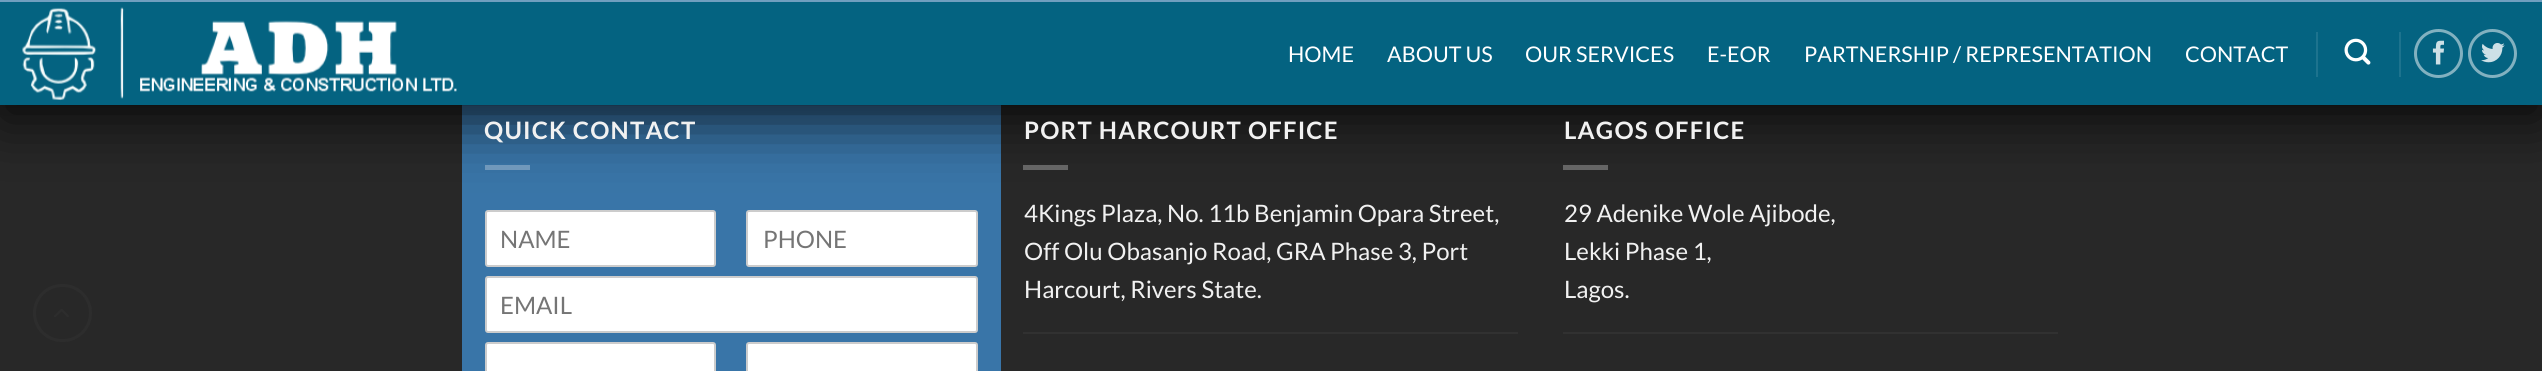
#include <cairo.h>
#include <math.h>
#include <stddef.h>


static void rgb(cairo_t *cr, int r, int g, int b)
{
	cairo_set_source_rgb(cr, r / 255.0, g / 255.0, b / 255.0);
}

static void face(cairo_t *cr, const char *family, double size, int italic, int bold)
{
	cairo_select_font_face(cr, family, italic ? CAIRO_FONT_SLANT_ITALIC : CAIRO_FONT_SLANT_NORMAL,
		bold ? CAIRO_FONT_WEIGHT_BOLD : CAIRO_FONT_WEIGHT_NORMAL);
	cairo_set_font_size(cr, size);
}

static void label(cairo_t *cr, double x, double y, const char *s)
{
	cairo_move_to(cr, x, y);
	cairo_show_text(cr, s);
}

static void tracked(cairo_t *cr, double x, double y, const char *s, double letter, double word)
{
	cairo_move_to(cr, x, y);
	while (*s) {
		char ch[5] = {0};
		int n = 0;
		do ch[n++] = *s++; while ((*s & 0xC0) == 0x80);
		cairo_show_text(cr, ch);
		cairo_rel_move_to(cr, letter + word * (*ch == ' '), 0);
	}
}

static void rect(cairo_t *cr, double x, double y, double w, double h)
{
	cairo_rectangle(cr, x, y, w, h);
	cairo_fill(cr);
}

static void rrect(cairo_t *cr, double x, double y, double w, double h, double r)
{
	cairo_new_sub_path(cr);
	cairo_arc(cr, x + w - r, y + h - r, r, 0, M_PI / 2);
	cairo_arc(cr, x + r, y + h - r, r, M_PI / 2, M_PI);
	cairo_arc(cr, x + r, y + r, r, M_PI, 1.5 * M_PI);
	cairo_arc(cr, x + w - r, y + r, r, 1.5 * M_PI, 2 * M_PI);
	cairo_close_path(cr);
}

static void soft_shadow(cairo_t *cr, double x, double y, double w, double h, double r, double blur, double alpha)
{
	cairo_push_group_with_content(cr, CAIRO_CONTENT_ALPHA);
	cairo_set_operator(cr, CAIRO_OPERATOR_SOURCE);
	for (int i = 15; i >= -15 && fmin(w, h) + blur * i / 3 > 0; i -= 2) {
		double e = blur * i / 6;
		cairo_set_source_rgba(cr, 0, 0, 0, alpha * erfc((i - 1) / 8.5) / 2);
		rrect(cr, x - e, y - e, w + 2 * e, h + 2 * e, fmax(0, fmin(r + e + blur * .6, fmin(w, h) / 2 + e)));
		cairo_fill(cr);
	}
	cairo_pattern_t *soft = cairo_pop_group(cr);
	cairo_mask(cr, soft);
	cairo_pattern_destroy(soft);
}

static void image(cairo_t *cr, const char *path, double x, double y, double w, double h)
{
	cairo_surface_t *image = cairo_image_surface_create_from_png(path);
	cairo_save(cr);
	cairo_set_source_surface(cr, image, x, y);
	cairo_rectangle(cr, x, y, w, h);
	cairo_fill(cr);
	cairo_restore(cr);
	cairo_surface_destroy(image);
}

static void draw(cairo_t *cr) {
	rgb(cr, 40, 40, 40);
	cairo_paint(cr);
	rgb(cr, 57, 117, 168);
	rect(cr, 462, 105, 539, 266);
	rgb(cr, 0, 0, 0);
	soft_shadow(cr, 2, 2, 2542, 105, 0, 7.5, 0.15);
	rgb(cr, 116, 158, 194);
	rect(cr, 485, 165, 45, 5);
	rgb(cr, 105, 105, 105);
	rect(cr, 1023, 165, 45, 5);
	rect(cr, 1563, 165, 45, 5);
	rgb(cr, 0, 0, 0);
	soft_shadow(cr, 0, 15, 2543, 105, 0, 29, 0.75);
	rgb(cr, 4, 99, 129);
	rect(cr, 0, 2, 2542, 103);
	rgb(cr, 112, 159, 191);
	rect(cr, 0, 0, 2542, 2);
	image(cr, "image0.png", 22, 7, 435, 94);
	face(cr, "Lato", 21.6, 0, 0);
	rgb(cr, 255, 255, 255);
	label(cr, 1288, 62, "HOME");
	label(cr, 1387, 62, "ABOUT US");
	label(cr, 1525, 62, "OUR SERVICES");
	label(cr, 1707, 62, "E-EOR");
	label(cr, 1804, 62, "PARTNERSHIP / REPRESENTATION");
	label(cr, 2185, 62, "CONTACT");
	rgb(cr, 29, 115, 142);
	rect(cr, 2316, 32, 2, 45);
	image(cr, "image1.png", 2344, 38, 27, 27);
	rect(cr, 2399, 32, 2, 45);
	cairo_arc(cr, 2438.5, 53.5, 23, 0, 2 * M_PI);
	rgb(cr, 130, 177, 192);
	cairo_set_line_width(cr, 3);
	cairo_stroke(cr);
	image(cr, "image2.png", 2432, 40, 12, 25);
	cairo_arc(cr, 2492.5, 53.5, 23, 0, 2 * M_PI);
	cairo_stroke(cr);
	image(cr, "image3.png", 2481, 43, 24, 20);
	rrect(cr, 34.5, 285.5, 56, 55, 27.5);
	rgb(cr, 45, 45, 45);
	cairo_stroke(cr);
	image(cr, "image4.png", 54, 309, 15, 8);
	face(cr, "Lato", 24, 0, 1);
	rgb(cr, 241, 241, 241);
	tracked(cr, 484, 139, "QUICK CONTACT", 1.2, 0);
	rgb(cr, 255, 255, 255);
	rrect(cr, 486, 211, 229, 55, 2);
	cairo_fill_preserve(cr);
	rgb(cr, 204, 204, 204);
	cairo_set_line_width(cr, 2);
	cairo_stroke(cr);
	face(cr, "Lato", 24, 0, 0);
	rgb(cr, 117, 117, 117);
	label(cr, 500, 248, "NAME");
	rgb(cr, 255, 255, 255);
	rrect(cr, 747, 211, 230, 55, 2);
	cairo_fill_preserve(cr);
	rgb(cr, 204, 204, 204);
	cairo_stroke(cr);
	rgb(cr, 117, 117, 117);
	label(cr, 763, 248, "PHONE");
	rgb(cr, 255, 255, 255);
	rrect(cr, 486, 277, 491, 55, 2);
	cairo_fill_preserve(cr);
	rgb(cr, 204, 204, 204);
	cairo_stroke(cr);
	rgb(cr, 117, 117, 117);
	label(cr, 500, 314, "EMAIL");
	rgb(cr, 255, 255, 255);
	rrect(cr, 486, 343, 229, 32, 2);
	cairo_fill_preserve(cr);
	rgb(cr, 204, 204, 204);
	cairo_stroke(cr);
	rgb(cr, 255, 255, 255);
	rrect(cr, 747, 343, 230, 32, 2);
	cairo_fill_preserve(cr);
	rgb(cr, 204, 204, 204);
	cairo_stroke(cr);
	face(cr, "Lato", 24, 0, 1);
	rgb(cr, 241, 241, 241);
	tracked(cr, 1024, 139, "PORT HARCOURT OFFICE", 1.2, 0);
	face(cr, "Lato", 24, 0, 0);
	label(cr, 1024, 222, "4Kings Plaza, No. 11b Benjamin Opara Street,");
	label(cr, 1024, 260, "Off Olu Obasanjo Road, GRA Phase 3, Port");
	label(cr, 1024, 298, "Harcourt, Rivers State.");
	rgb(cr, 49, 49, 49);
	rect(cr, 1023, 332, 495, 2);
	face(cr, "Lato", 24, 0, 1);
	rgb(cr, 241, 241, 241);
	tracked(cr, 1564, 139, "LAGOS OFFICE", 1.2, 0);
	face(cr, "Lato", 24, 0, 0);
	label(cr, 1564, 222, "29 Adenike Wole Ajibode,");
	label(cr, 1564, 260, "Lekki Phase 1,");
	label(cr, 1564, 298, "Lagos.");
	rgb(cr, 49, 49, 49);
	rect(cr, 1563, 332, 495, 2);
}

int main(void) {
	cairo_surface_t *surface = cairo_image_surface_create(CAIRO_FORMAT_RGB24, 2542, 371);
	cairo_t *cr = cairo_create(surface);
	cairo_font_options_t *options = cairo_font_options_create();
	cairo_font_options_set_hint_metrics(options, CAIRO_HINT_METRICS_OFF);
	cairo_font_options_set_hint_style(options, CAIRO_HINT_STYLE_NONE);
	cairo_set_font_options(cr, options);
	cairo_set_miter_limit(cr, 4);
	draw(cr);
	cairo_surface_write_to_png(surface, "render.png");
	cairo_font_options_destroy(options);
	cairo_destroy(cr);
	cairo_surface_destroy(surface);
	return 0;
}
